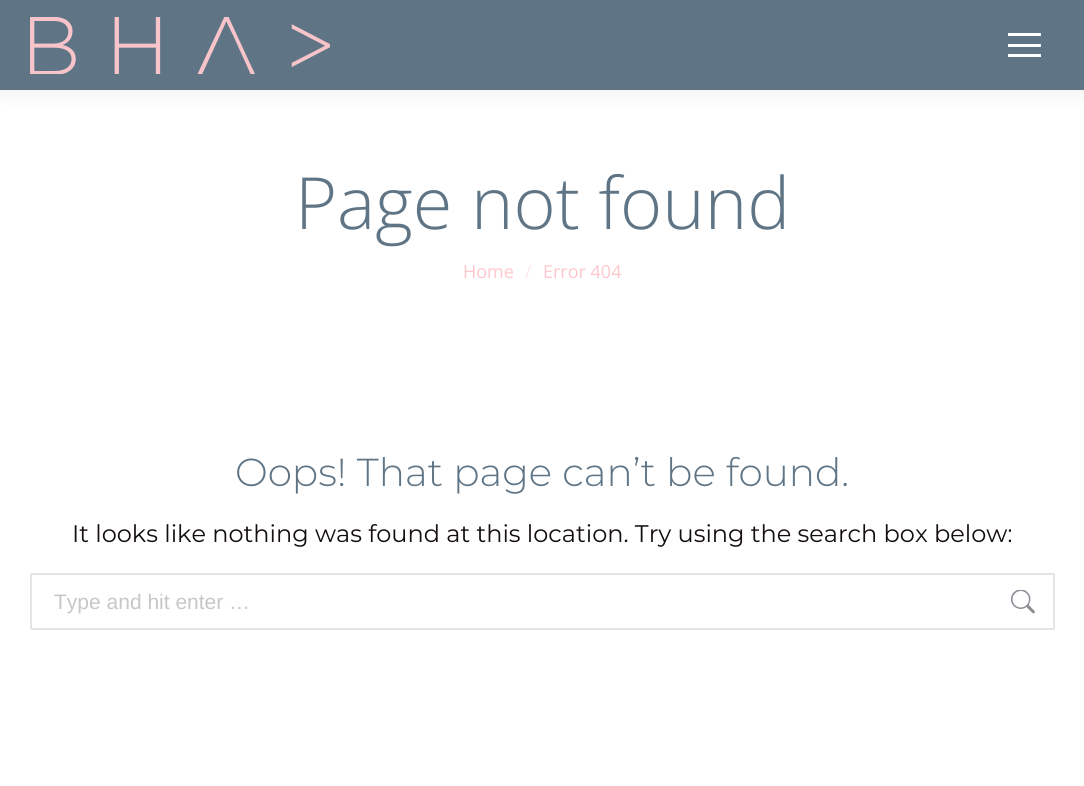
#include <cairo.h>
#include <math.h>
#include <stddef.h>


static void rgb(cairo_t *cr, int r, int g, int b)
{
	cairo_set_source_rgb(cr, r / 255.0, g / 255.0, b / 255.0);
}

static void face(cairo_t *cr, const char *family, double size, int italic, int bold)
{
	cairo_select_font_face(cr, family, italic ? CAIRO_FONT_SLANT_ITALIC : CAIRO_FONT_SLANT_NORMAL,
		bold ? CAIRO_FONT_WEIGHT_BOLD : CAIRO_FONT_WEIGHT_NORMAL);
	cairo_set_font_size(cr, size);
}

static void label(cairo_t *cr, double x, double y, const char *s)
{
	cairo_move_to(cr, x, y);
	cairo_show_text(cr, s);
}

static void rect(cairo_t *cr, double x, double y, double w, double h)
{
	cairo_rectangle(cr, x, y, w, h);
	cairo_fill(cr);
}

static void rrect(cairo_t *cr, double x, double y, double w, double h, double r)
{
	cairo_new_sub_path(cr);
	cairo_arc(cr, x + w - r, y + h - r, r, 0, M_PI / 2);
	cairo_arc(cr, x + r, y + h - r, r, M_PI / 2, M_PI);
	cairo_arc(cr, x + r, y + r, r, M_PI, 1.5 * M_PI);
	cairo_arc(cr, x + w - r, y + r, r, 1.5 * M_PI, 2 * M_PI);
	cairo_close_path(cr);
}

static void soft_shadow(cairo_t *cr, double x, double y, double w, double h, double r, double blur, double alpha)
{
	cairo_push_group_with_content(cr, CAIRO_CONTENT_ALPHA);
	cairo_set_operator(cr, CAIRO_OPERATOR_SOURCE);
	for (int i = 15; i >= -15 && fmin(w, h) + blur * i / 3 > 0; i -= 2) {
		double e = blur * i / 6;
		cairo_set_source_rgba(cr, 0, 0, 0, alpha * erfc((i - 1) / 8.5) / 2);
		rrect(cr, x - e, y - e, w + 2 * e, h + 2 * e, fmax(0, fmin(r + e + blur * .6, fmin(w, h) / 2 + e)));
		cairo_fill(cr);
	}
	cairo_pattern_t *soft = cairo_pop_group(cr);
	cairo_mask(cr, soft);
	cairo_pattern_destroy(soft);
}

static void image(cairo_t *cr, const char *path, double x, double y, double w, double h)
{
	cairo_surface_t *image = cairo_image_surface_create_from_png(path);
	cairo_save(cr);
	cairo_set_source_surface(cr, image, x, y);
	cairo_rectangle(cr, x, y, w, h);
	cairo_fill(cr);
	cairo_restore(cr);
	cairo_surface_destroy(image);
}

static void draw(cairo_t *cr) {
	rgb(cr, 255, 255, 255);
	cairo_paint(cr);
	rgb(cr, 0, 0, 0);
	soft_shadow(cr, -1, -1, 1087, 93, 0, 11, 0.07);
	rgb(cr, 95, 117, 134);
	rect(cr, 0, 0, 1084, 90);
	image(cr, "image0.png", 30, 17, 300, 57);
	rgb(cr, 255, 255, 255);
	rect(cr, 1008, 33, 33, 3);
	rect(cr, 1008, 44, 33, 3);
	rect(cr, 1008, 54, 33, 3);
	face(cr, "Open Sans Light", 72, 0, 0);
	rgb(cr, 95, 117, 134);
	label(cr, 295, 229, "Page not found");
	face(cr, "Open Sans", 18, 0, 0);
	rgb(cr, 255, 198, 204);
	label(cr, 463, 278, "Home");
	rgb(cr, 255, 227, 230);
	label(cr, 525, 278, "/");
	rgb(cr, 255, 198, 204);
	label(cr, 543, 278, "Error 404");
	face(cr, "Montserrat Light", 39, 0, 0);
	rgb(cr, 95, 117, 134);
	label(cr, 235, 486, "Oops! That page can’t be found.");
	face(cr, "Montserrat", 24, 0, 0);
	rgb(cr, 20, 15, 14);
	label(cr, 72, 542, "It looks like nothing was found at this location. Try using the search box below:");
	rrect(cr, 31, 574, 1023, 55, 0.5);
	rgb(cr, 229, 229, 229);
	cairo_stroke(cr);
	face(cr, "Liberation Sans", 21, 0, 0);
	rgb(cr, 197, 199, 201);
	label(cr, 54, 609, "Type and hit enter …");
	image(cr, "image1.png", 1011, 590, 24, 24);
}

int main(void) {
	cairo_surface_t *surface = cairo_image_surface_create(CAIRO_FORMAT_RGB24, 1084, 786);
	cairo_t *cr = cairo_create(surface);
	cairo_font_options_t *options = cairo_font_options_create();
	cairo_font_options_set_hint_metrics(options, CAIRO_HINT_METRICS_OFF);
	cairo_font_options_set_hint_style(options, CAIRO_HINT_STYLE_NONE);
	cairo_set_font_options(cr, options);
	cairo_set_miter_limit(cr, 4);
	draw(cr);
	cairo_surface_write_to_png(surface, "render.png");
	cairo_font_options_destroy(options);
	cairo_destroy(cr);
	cairo_surface_destroy(surface);
	return 0;
}
